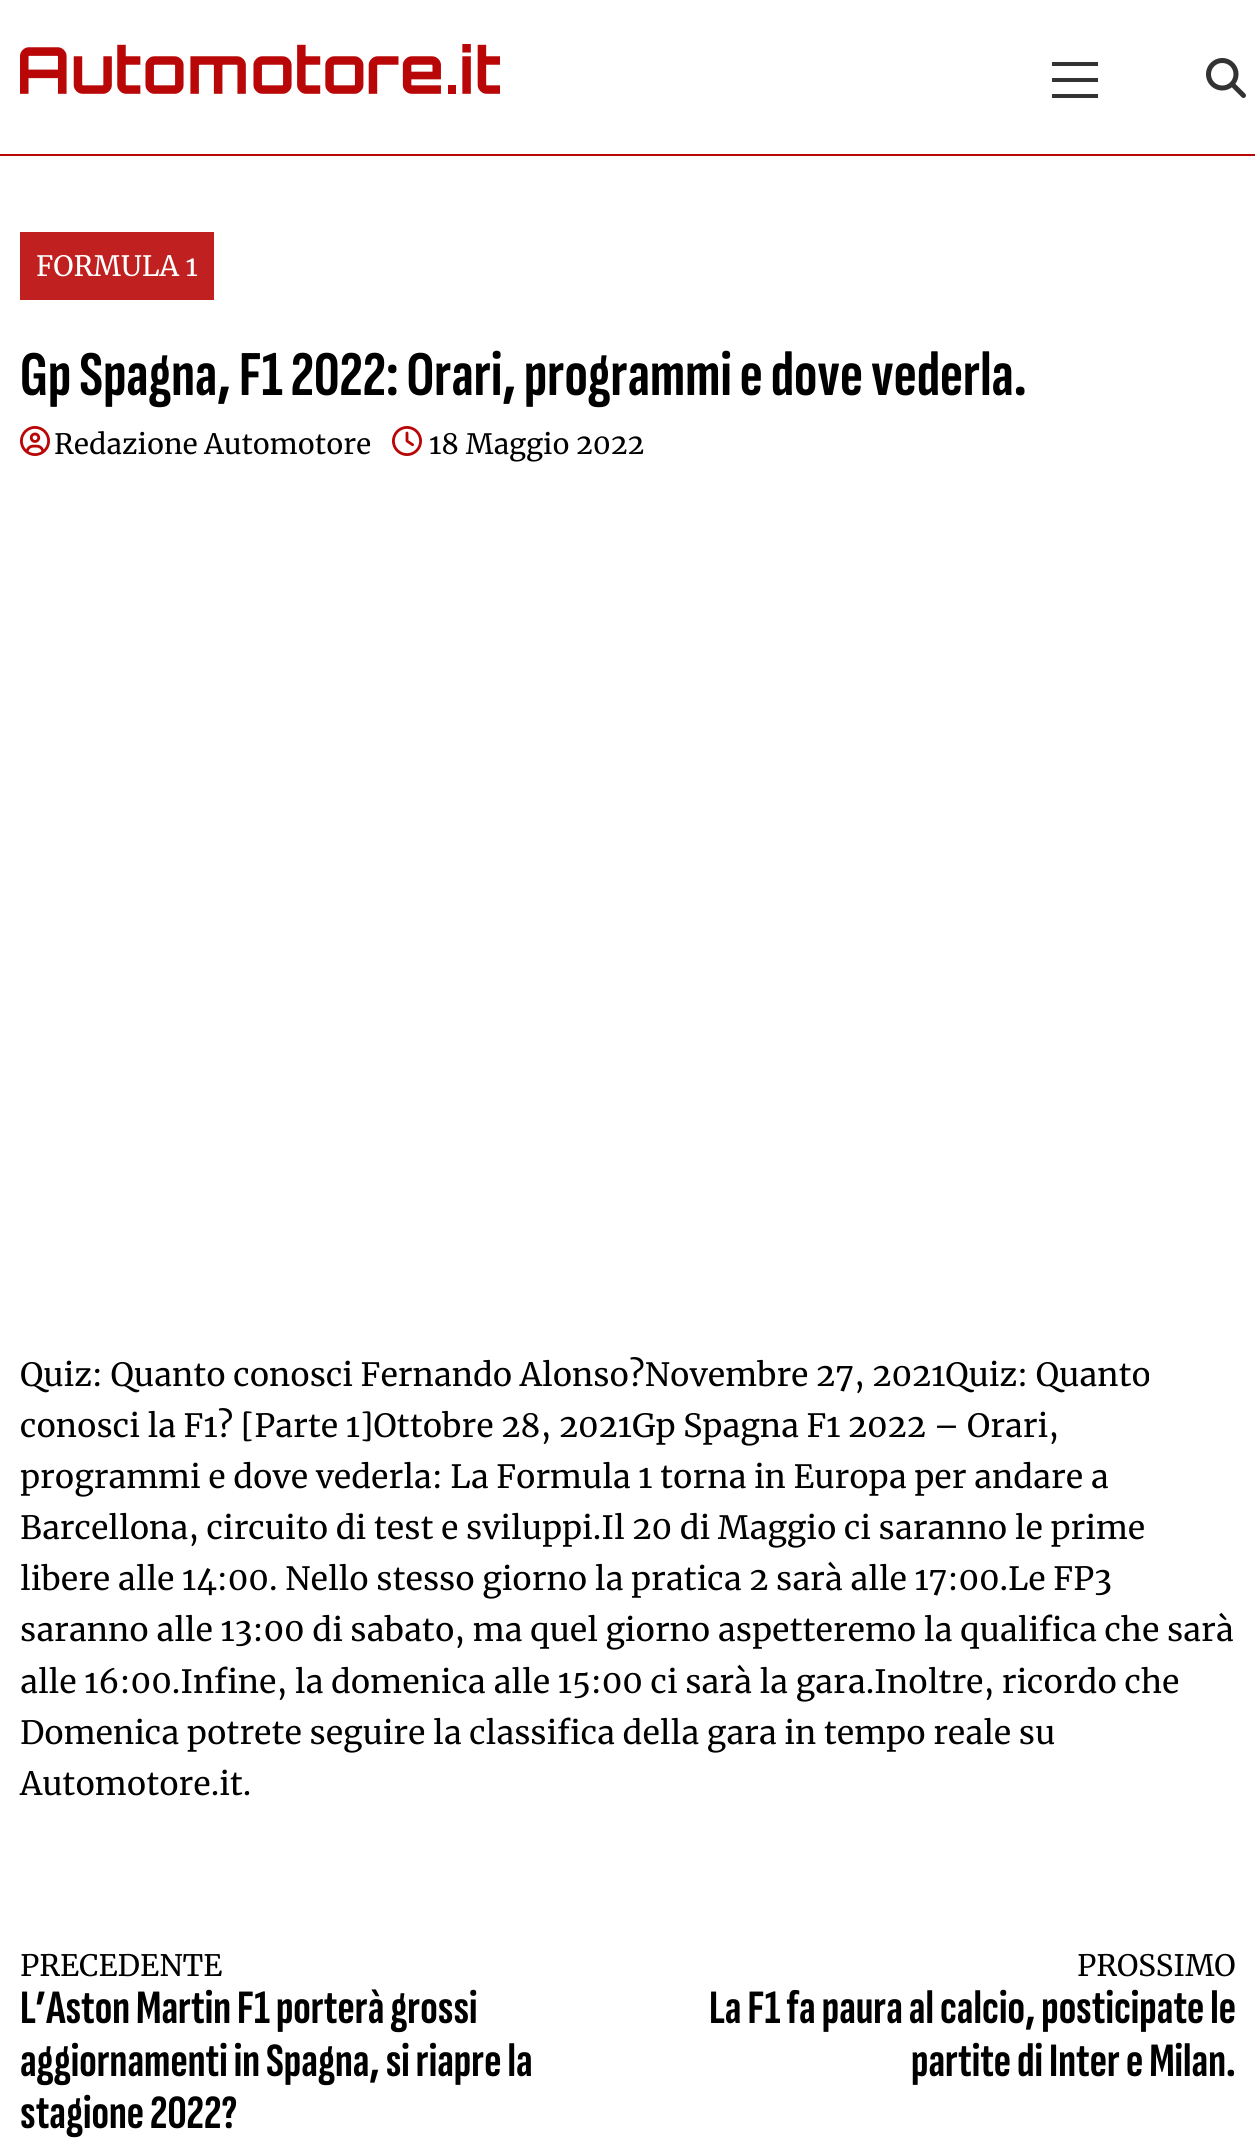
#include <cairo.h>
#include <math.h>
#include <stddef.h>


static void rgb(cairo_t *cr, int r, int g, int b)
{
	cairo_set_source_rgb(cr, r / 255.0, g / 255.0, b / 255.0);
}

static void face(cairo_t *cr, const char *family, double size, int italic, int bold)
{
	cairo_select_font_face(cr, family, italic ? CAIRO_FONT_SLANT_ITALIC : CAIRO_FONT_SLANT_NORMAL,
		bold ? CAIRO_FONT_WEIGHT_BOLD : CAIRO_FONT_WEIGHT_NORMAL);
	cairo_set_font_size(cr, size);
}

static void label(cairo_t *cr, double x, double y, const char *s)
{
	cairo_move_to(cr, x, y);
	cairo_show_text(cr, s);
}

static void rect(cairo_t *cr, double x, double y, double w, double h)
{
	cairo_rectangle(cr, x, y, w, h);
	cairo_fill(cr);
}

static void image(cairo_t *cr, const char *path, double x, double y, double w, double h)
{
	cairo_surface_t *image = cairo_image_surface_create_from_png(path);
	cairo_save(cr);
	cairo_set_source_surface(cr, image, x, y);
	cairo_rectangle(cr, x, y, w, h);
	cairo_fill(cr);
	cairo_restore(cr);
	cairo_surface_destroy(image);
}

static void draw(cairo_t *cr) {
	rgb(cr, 255, 255, 255);
	cairo_paint(cr);
	rgb(cr, 185, 7, 7);
	rect(cr, 0, 154, 1255, 2);
	image(cr, "image0.png", 20, 44, 480, 50);
	rgb(cr, 51, 51, 51);
	rect(cr, 1052, 78, 46, 4);
	rect(cr, 1052, 62, 46, 4);
	rect(cr, 1052, 94, 46, 4);
	image(cr, "image1.png", 1206, 58, 40, 40);
	rgb(cr, 192, 32, 32);
	rect(cr, 20, 232, 194, 68);
	face(cr, "Merriweather", 28, 0, 0);
	rgb(cr, 255, 255, 255);
	label(cr, 36, 276, "FORMULA 1");
	face(cr, "Sofia Sans Extra Condensed", 64, 0, 1);
	rgb(cr, 0, 0, 0);
	label(cr, 20, 395, "Gp Spagna, F1 2022: Orari, programmi e dove vederla.");
	image(cr, "image2.png", 20, 426, 30, 30);
	face(cr, "Merriweather", 28, 0, 0);
	label(cr, 54, 454, "Redazione Automotore");
	image(cr, "image3.png", 392, 426, 30, 30);
	label(cr, 429, 454, "18 Maggio 2022");
	face(cr, "Merriweather", 32, 0, 0);
	label(cr, 20, 1386, "Quiz: Quanto conosci Fernando Alonso?Novembre 27, 2021Quiz: Quanto");
	label(cr, 20, 1437, "conosci la F1? [Parte 1]Ottobre 28, 2021Gp Spagna F1 2022 – Orari,");
	label(cr, 20, 1488, "programmi e dove vederla: La Formula 1 torna in Europa per andare a");
	label(cr, 20, 1539, "Barcellona, circuito di test e sviluppi.Il 20 di Maggio ci saranno le prime");
	label(cr, 20, 1590, "libere alle 14:00. Nello stesso giorno la pratica 2 sarà alle 17:00.Le FP3");
	label(cr, 20, 1641, "saranno alle 13:00 di sabato, ma quel giorno aspetteremo la qualifica che sarà");
	label(cr, 20, 1693, "alle 16:00.Infine, la domenica alle 15:00 ci sarà la gara.Inoltre, ricordo che");
	label(cr, 20, 1744, "Domenica potrete seguire la classifica della gara in tempo reale su");
	label(cr, 20, 1795, "Automotore.it.");
	face(cr, "Merriweather", 29.5, 0, 0);
	label(cr, 20, 1976, "PRECEDENTE");
	face(cr, "Sofia Sans Extra Condensed", 48, 0, 1);
	label(cr, 20, 2023, "L’Aston Martin F1 porterà grossi");
	label(cr, 20, 2076, "aggiornamenti in Spagna, si riapre la");
	label(cr, 20, 2128, "stagione 2022?");
	face(cr, "Merriweather", 29.5, 0, 0);
	label(cr, 1077, 1976, "PROSSIMO");
	face(cr, "Sofia Sans Extra Condensed", 48, 0, 1);
	label(cr, 709, 2023, "La F1 fa paura al calcio, posticipate le");
	label(cr, 911, 2076, "partite di Inter e Milan.");
}

int main(void) {
	cairo_surface_t *surface = cairo_image_surface_create(CAIRO_FORMAT_RGB24, 1255, 2153);
	cairo_t *cr = cairo_create(surface);
	cairo_font_options_t *options = cairo_font_options_create();
	cairo_font_options_set_hint_metrics(options, CAIRO_HINT_METRICS_OFF);
	cairo_font_options_set_hint_style(options, CAIRO_HINT_STYLE_NONE);
	cairo_set_font_options(cr, options);
	cairo_set_miter_limit(cr, 4);
	draw(cr);
	cairo_surface_write_to_png(surface, "render.png");
	cairo_font_options_destroy(options);
	cairo_destroy(cr);
	cairo_surface_destroy(surface);
	return 0;
}
